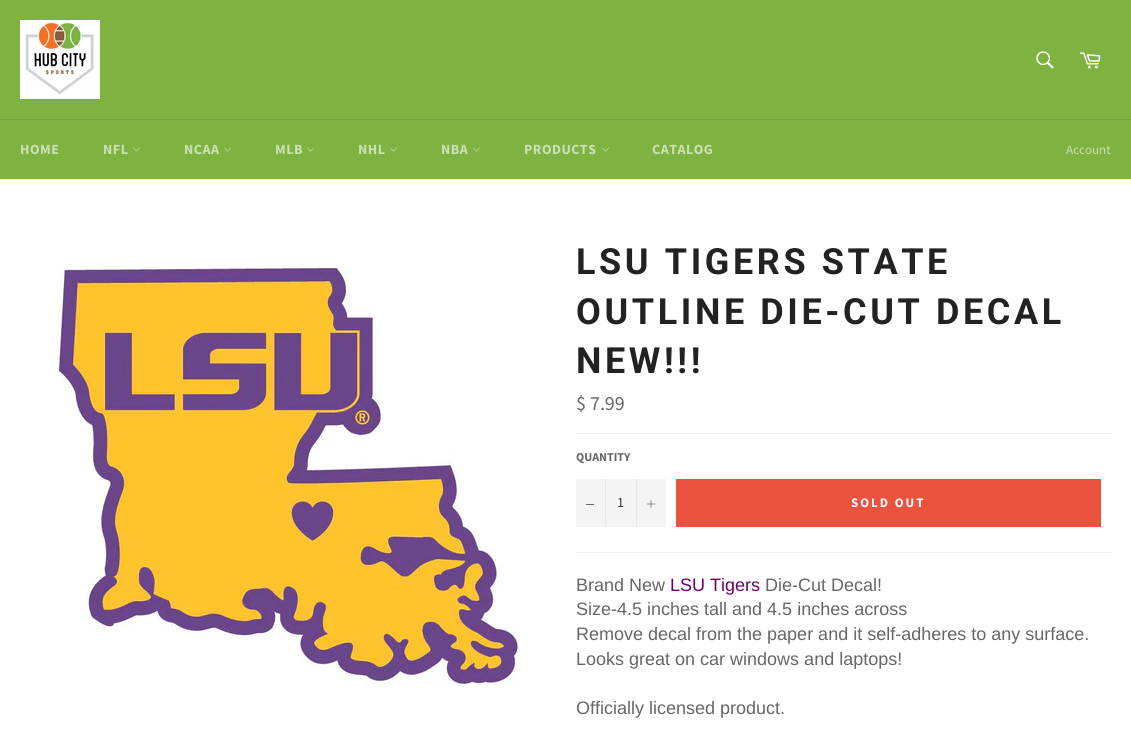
#include <cairo.h>
#include <math.h>
#include <stddef.h>


static void rgb(cairo_t *cr, int r, int g, int b)
{
	cairo_set_source_rgb(cr, r / 255.0, g / 255.0, b / 255.0);
}

static void face(cairo_t *cr, const char *family, double size, int italic, int bold)
{
	cairo_select_font_face(cr, family, italic ? CAIRO_FONT_SLANT_ITALIC : CAIRO_FONT_SLANT_NORMAL,
		bold ? CAIRO_FONT_WEIGHT_BOLD : CAIRO_FONT_WEIGHT_NORMAL);
	cairo_set_font_size(cr, size);
}

static void label(cairo_t *cr, double x, double y, const char *s)
{
	cairo_move_to(cr, x, y);
	cairo_show_text(cr, s);
}

static void tracked(cairo_t *cr, double x, double y, const char *s, double letter, double word)
{
	cairo_move_to(cr, x, y);
	while (*s) {
		char ch[5] = {0};
		int n = 0;
		do ch[n++] = *s++; while ((*s & 0xC0) == 0x80);
		cairo_show_text(cr, ch);
		cairo_rel_move_to(cr, letter + word * (*ch == ' '), 0);
	}
}

static void rect(cairo_t *cr, double x, double y, double w, double h)
{
	cairo_rectangle(cr, x, y, w, h);
	cairo_fill(cr);
}

static void image(cairo_t *cr, const char *path, double x, double y, double w, double h)
{
	cairo_surface_t *image = cairo_image_surface_create_from_png(path);
	cairo_save(cr);
	cairo_set_source_surface(cr, image, x, y);
	cairo_rectangle(cr, x, y, w, h);
	cairo_fill(cr);
	cairo_restore(cr);
	cairo_surface_destroy(image);
}

static void draw(cairo_t *cr) {
	rgb(cr, 126, 178, 65);
	cairo_paint(cr);
	image(cr, "image0.png", 20, 20, 80, 79);
	image(cr, "image1.png", 1036, 51, 18, 18);
	image(cr, "image2.png", 1079, 52, 22, 17);
	rgb(cr, 113, 159, 58);
	rect(cr, 0, 119, 1131, 1);
	face(cr, "Source Sans Pro", 14, 0, 1);
	rgb(cr, 203, 224, 179);
	tracked(cr, 20, 154, "HOME", 0.5, 0);
	tracked(cr, 103, 154, "NFL", 0.5, 0);
	image(cr, "image3.png", 133, 147, 7, 5);
	tracked(cr, 184, 154, "NCAA", 0.5, 0);
	image(cr, "image3.png", 224, 147, 7, 5);
	tracked(cr, 275, 154, "MLB", 0.5, 0);
	image(cr, "image3.png", 307, 147, 7, 5);
	tracked(cr, 358, 154, "NHL", 0.5, 0);
	image(cr, "image3.png", 390, 147, 7, 5);
	tracked(cr, 441, 154, "NBA", 0.5, 0);
	image(cr, "image3.png", 473, 147, 7, 5);
	tracked(cr, 524, 154, "PRODUCTS", 0.5, 0);
	image(cr, "image3.png", 602, 147, 7, 5);
	tracked(cr, 652, 154, "CATALOG", 0.5, 0);
	face(cr, "Source Sans Pro", 13, 0, 0);
	label(cr, 1066, 154, "Account");
	rgb(cr, 255, 255, 255);
	rect(cr, 0, 179, 1131, 555);
	image(cr, "image4.png", 56, 266, 464, 420);
	face(cr, "Roboto", 36, 0, 1);
	rgb(cr, 34, 34, 34);
	tracked(cr, 576, 274, "LSU TIGERS STATE", 3.6, 0);
	tracked(cr, 576, 324, "OUTLINE DIE-CUT DECAL", 3.6, 0);
	tracked(cr, 576, 373, "NEW!!!", 3.6, 0);
	face(cr, "Source Sans Pro", 20, 0, 0);
	rgb(cr, 102, 102, 102);
	label(cr, 576, 410, "$ 7.99");
	rgb(cr, 240, 240, 240);
	rect(cr, 576, 433, 535, 1);
	face(cr, "Source Sans Pro", 12, 0, 1);
	rgb(cr, 102, 102, 102);
	label(cr, 576, 461, "QUANTITY");
	rgb(cr, 244, 244, 244);
	rect(cr, 576, 479, 90, 48);
	rgb(cr, 231, 231, 231);
	rect(cr, 605, 479, 1, 48);
	rgb(cr, 102, 102, 102);
	rect(cr, 586, 504, 8, 1);
	face(cr, "Source Sans Pro", 14, 0, 0);
	rgb(cr, 51, 51, 51);
	label(cr, 617, 507, "1");
	rgb(cr, 231, 231, 231);
	rect(cr, 636, 479, 1, 48);
	image(cr, "image5.png", 647, 500, 8, 8);
	rgb(cr, 236, 82, 62);
	rect(cr, 676, 479, 425, 48);
	face(cr, "Source Sans Pro", 13, 0, 1);
	rgb(cr, 255, 255, 255);
	tracked(cr, 851, 507, "SOLD OUT", 2, 0);
	rgb(cr, 240, 240, 240);
	rect(cr, 576, 552, 535, 1);
	face(cr, "Liberation Sans", 18, 0, 0);
	rgb(cr, 102, 102, 102);
	label(cr, 576, 591, "Brand New");
	rgb(cr, 104, 0, 107);
	label(cr, 670, 591, "LSU Tigers");
	rgb(cr, 102, 102, 102);
	label(cr, 765, 591, "Die-Cut Decal!");
	label(cr, 576, 615, "Size-4.5 inches tall and 4.5 inches across");
	label(cr, 576, 640, "Remove decal from the paper and it self-adheres to any surface.");
	label(cr, 576, 665, "Looks great on car windows and laptops!");
	label(cr, 576, 714, "Officially licensed product.");
}

int main(void) {
	cairo_surface_t *surface = cairo_image_surface_create(CAIRO_FORMAT_RGB24, 1131, 734);
	cairo_t *cr = cairo_create(surface);
	cairo_font_options_t *options = cairo_font_options_create();
	cairo_font_options_set_hint_metrics(options, CAIRO_HINT_METRICS_OFF);
	cairo_font_options_set_hint_style(options, CAIRO_HINT_STYLE_NONE);
	cairo_set_font_options(cr, options);
	cairo_set_miter_limit(cr, 4);
	draw(cr);
	cairo_surface_write_to_png(surface, "render.png");
	cairo_font_options_destroy(options);
	cairo_destroy(cr);
	cairo_surface_destroy(surface);
	return 0;
}
